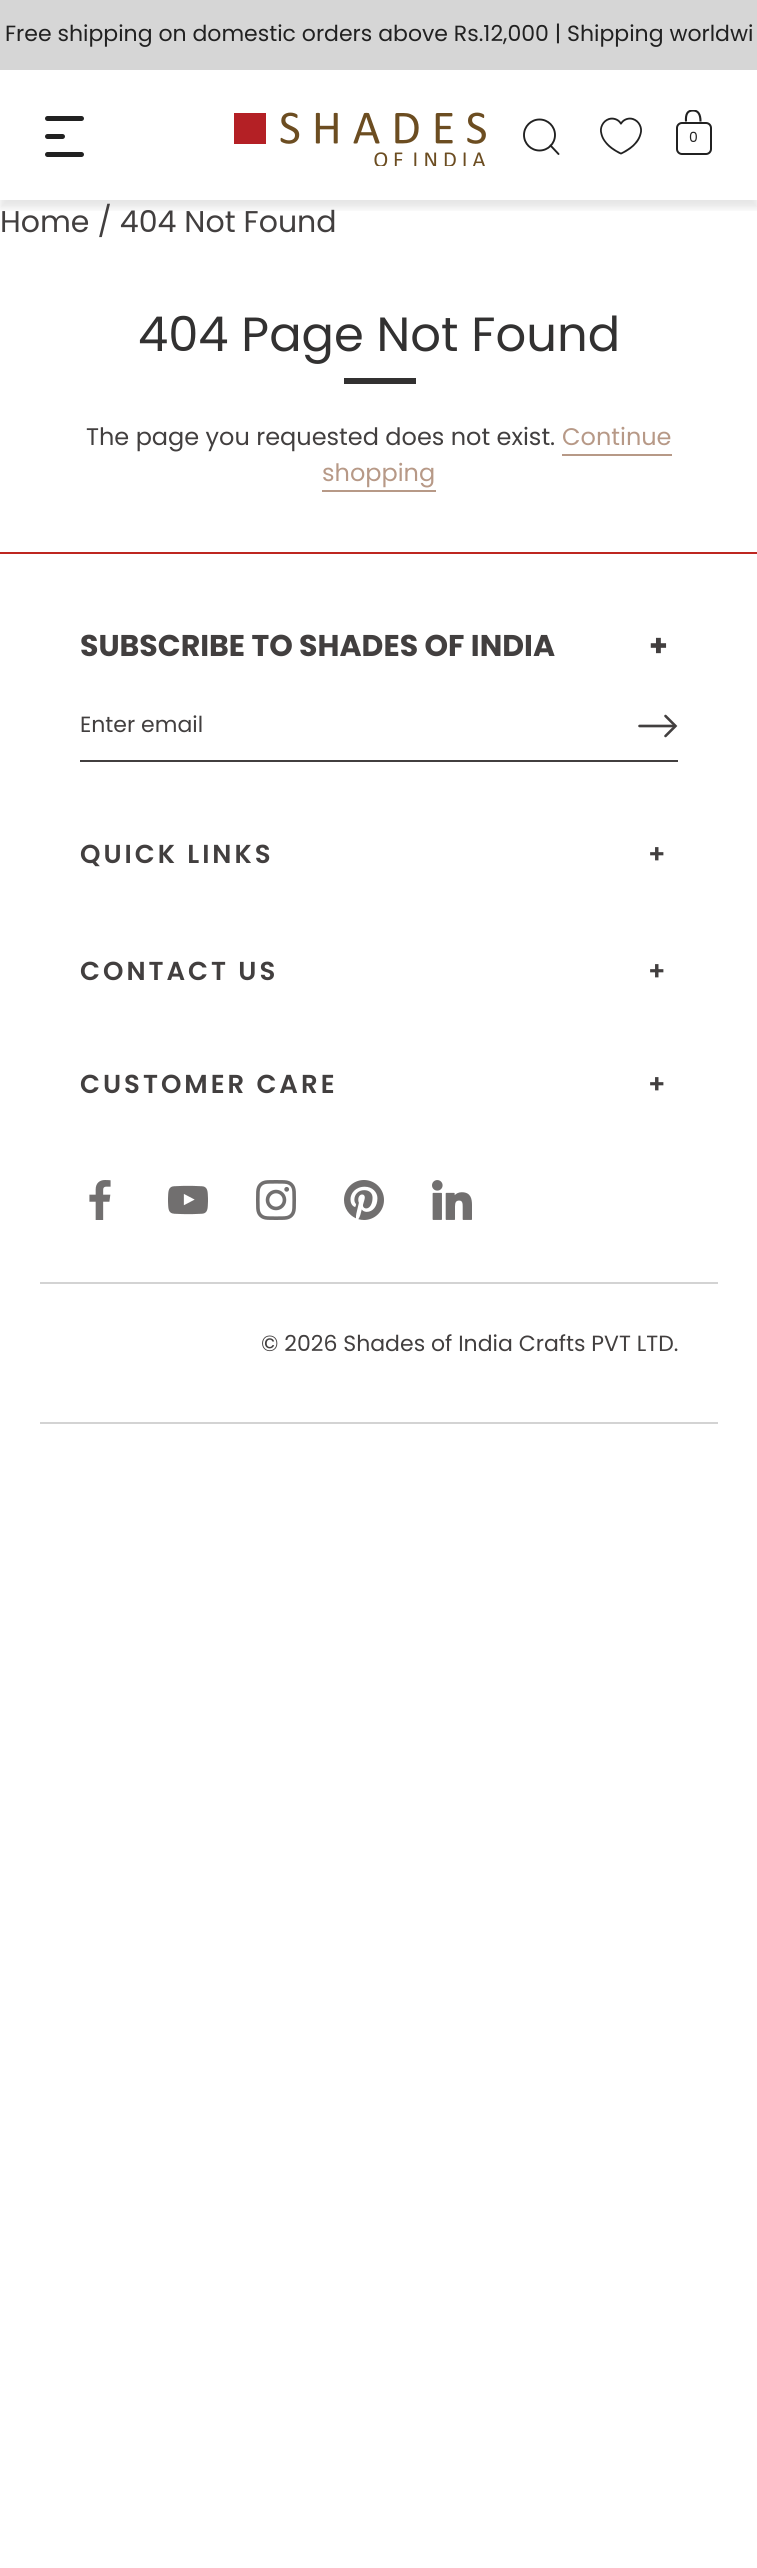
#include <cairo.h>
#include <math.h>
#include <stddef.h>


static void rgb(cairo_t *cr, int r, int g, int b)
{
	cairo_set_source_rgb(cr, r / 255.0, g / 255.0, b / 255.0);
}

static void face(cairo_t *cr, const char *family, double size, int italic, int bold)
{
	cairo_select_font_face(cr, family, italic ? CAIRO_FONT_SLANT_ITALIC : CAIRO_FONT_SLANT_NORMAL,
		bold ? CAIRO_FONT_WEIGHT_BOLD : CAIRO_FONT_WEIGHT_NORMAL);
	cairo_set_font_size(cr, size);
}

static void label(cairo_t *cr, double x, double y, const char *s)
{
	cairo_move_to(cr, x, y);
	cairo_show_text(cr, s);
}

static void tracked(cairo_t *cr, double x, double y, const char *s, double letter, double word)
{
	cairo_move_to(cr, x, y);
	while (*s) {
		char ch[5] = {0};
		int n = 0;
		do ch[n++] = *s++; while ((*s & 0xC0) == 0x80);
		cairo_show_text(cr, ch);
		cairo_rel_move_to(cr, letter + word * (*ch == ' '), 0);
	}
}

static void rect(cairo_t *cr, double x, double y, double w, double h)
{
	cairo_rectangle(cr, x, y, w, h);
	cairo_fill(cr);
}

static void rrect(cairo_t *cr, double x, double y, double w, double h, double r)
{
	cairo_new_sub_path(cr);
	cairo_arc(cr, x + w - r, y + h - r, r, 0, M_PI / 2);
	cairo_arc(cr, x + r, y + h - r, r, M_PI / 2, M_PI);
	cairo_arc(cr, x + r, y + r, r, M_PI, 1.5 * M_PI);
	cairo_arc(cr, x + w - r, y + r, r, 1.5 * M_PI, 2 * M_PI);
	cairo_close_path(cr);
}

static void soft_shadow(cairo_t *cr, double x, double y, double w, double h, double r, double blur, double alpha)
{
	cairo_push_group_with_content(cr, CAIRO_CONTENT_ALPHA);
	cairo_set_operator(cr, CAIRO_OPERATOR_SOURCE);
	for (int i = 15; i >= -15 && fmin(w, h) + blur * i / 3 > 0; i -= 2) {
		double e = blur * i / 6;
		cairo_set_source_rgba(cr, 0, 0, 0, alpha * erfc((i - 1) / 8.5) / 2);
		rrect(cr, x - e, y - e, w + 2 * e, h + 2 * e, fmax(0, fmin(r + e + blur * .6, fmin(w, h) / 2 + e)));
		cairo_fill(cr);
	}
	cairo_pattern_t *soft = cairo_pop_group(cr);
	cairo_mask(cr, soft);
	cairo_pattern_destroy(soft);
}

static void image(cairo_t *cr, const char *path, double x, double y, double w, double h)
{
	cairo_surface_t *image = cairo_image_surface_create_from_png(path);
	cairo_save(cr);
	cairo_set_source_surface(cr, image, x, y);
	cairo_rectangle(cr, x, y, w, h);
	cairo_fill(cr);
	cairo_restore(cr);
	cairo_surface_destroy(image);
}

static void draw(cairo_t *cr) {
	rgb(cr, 255, 255, 255);
	cairo_paint(cr);
	rgb(cr, 214, 214, 214);
	rect(cr, 0, 0, 757, 70);
	face(cr, "Poppins", 22, 0, 0);
	rgb(cr, 33, 33, 33);
	label(cr, 5, 41, "Free shipping on domestic orders above Rs.12,000 | Shipping worldwi");
	cairo_save(cr);
	cairo_rectangle(cr, 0, 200, 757, 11);
	cairo_clip(cr);
	rgb(cr, 0, 0, 0);
	soft_shadow(cr, 0, 78, 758, 130, 0, 4, 0.1);
	cairo_restore(cr);
	rrect(cr, 45, 116, 39, 5, 2.5);
	cairo_fill(cr);
	rrect(cr, 45, 134, 20, 5, 2.5);
	cairo_fill(cr);
	rrect(cr, 45, 152, 39, 5, 2.5);
	cairo_fill(cr);
	image(cr, "image0.png", 234, 112, 252, 54);
	cairo_arc(cr, 539.5, 135, 15.5, 0, 2 * M_PI);
	cairo_set_line_width(cr, 1.9);
	cairo_stroke(cr);
	cairo_new_path(cr);
	cairo_move_to(cr, 558.5, 154);
	cairo_line_to(cr, 550.5, 145.5);
	cairo_set_line_cap(cr, CAIRO_LINE_CAP_ROUND);
	cairo_set_line_join(cr, CAIRO_LINE_JOIN_ROUND);
	cairo_stroke(cr);
	image(cr, "image1.png", 600, 117, 42, 38);
	cairo_save(cr);
	cairo_rectangle(cr, 670, 110, 48, 46);
	cairo_clip(cr);
	cairo_new_path(cr);
	cairo_move_to(cr, 686, 121.5);
	cairo_curve_to(cr, 685.5, 114, 687.5, 110.5, 693, 110.5);
	cairo_curve_to(cr, 698, 110.5, 700.5, 114, 700.5, 121.5);
	cairo_set_line_width(cr, 2.1);
	cairo_set_line_cap(cr, CAIRO_LINE_CAP_BUTT);
	cairo_set_line_join(cr, CAIRO_LINE_JOIN_MITER);
	cairo_stroke(cr);
	cairo_restore(cr);
	rrect(cr, 677, 123, 34, 31, 5);
	cairo_set_line_width(cr, 2);
	cairo_set_line_cap(cr, CAIRO_LINE_CAP_BUTT);
	cairo_set_line_join(cr, CAIRO_LINE_JOIN_MITER);
	cairo_stroke(cr);
	face(cr, "Poppins", 14, 0, 0);
	label(cr, 689, 142, "0");
	face(cr, "Poppins", 30, 0, 0);
	rgb(cr, 66, 63, 63);
	label(cr, 0, 232, "Home / 404 Not Found");
	face(cr, "Poppins", 48, 0, 0);
	rgb(cr, 50, 49, 49);
	label(cr, 138, 351, "404 Page Not Found");
	rect(cr, 344, 378, 72, 6);
	face(cr, "Poppins", 24, 0, 0);
	rgb(cr, 66, 63, 63);
	label(cr, 86, 445, "The page you requested does not exist.");
	rgb(cr, 183, 153, 135);
	label(cr, 562, 445, "Continue");
	rect(cr, 562, 454, 110, 2);
	label(cr, 322, 481, "shopping");
	rect(cr, 322, 490, 114, 2);
	rgb(cr, 190, 38, 32);
	rect(cr, 0, 552, 757, 2);
	rgb(cr, 211, 211, 211);
	rect(cr, 40, 1282, 678, 2);
	face(cr, "Poppins", 30, 0, 1);
	rgb(cr, 66, 63, 63);
	label(cr, 80, 656, "SUBSCRIBE TO SHADES OF INDIA");
	label(cr, 649, 656, "+");
	rect(cr, 80, 760, 598, 2);
	face(cr, "Poppins", 22, 0, 0);
	label(cr, 80, 732, "Enter email");
	cairo_new_path(cr);
	cairo_move_to(cr, 665.5, 736);
	cairo_line_to(cr, 675.5, 726);
	cairo_line_to(cr, 665.5, 716);
	cairo_set_line_width(cr, 2.6);
	cairo_set_line_cap(cr, CAIRO_LINE_CAP_ROUND);
	cairo_stroke(cr);
	cairo_new_path(cr);
	cairo_move_to(cr, 674.5, 726);
	cairo_line_to(cr, 639.5, 726);
	cairo_set_line_join(cr, CAIRO_LINE_JOIN_ROUND);
	cairo_stroke(cr);
	face(cr, "Poppins SemiBold", 26, 0, 0);
	tracked(cr, 80, 863, "QUICK LINKS", 3, 0);
	tracked(cr, 648, 863, "+", 3, 0);
	tracked(cr, 80, 980, "CONTACT US", 3, 0);
	tracked(cr, 648, 980, "+", 3, 0);
	tracked(cr, 80, 1093, "CUSTOMER CARE", 3, 0);
	tracked(cr, 648, 1093, "+", 3, 0);
	image(cr, "image2.png", 89, 1180, 22, 40);
	image(cr, "image3.png", 168, 1185, 40, 30);
	image(cr, "image4.png", 256, 1180, 40, 40);
	image(cr, "image5.png", 344, 1180, 40, 40);
	image(cr, "image6.png", 432, 1180, 40, 40);
	rgb(cr, 211, 211, 211);
	rect(cr, 40, 1422, 678, 2);
	face(cr, "Poppins", 22, 0, 0);
	rgb(cr, 66, 63, 63);
	label(cr, 261, 1351, "© 2026 Shades of India Crafts PVT LTD.");
}

int main(void) {
	cairo_surface_t *surface = cairo_image_surface_create(CAIRO_FORMAT_RGB24, 757, 2568);
	cairo_t *cr = cairo_create(surface);
	cairo_font_options_t *options = cairo_font_options_create();
	cairo_font_options_set_hint_metrics(options, CAIRO_HINT_METRICS_OFF);
	cairo_font_options_set_hint_style(options, CAIRO_HINT_STYLE_NONE);
	cairo_set_font_options(cr, options);
	cairo_set_miter_limit(cr, 4);
	draw(cr);
	cairo_surface_write_to_png(surface, "render.png");
	cairo_font_options_destroy(options);
	cairo_destroy(cr);
	cairo_surface_destroy(surface);
	return 0;
}
